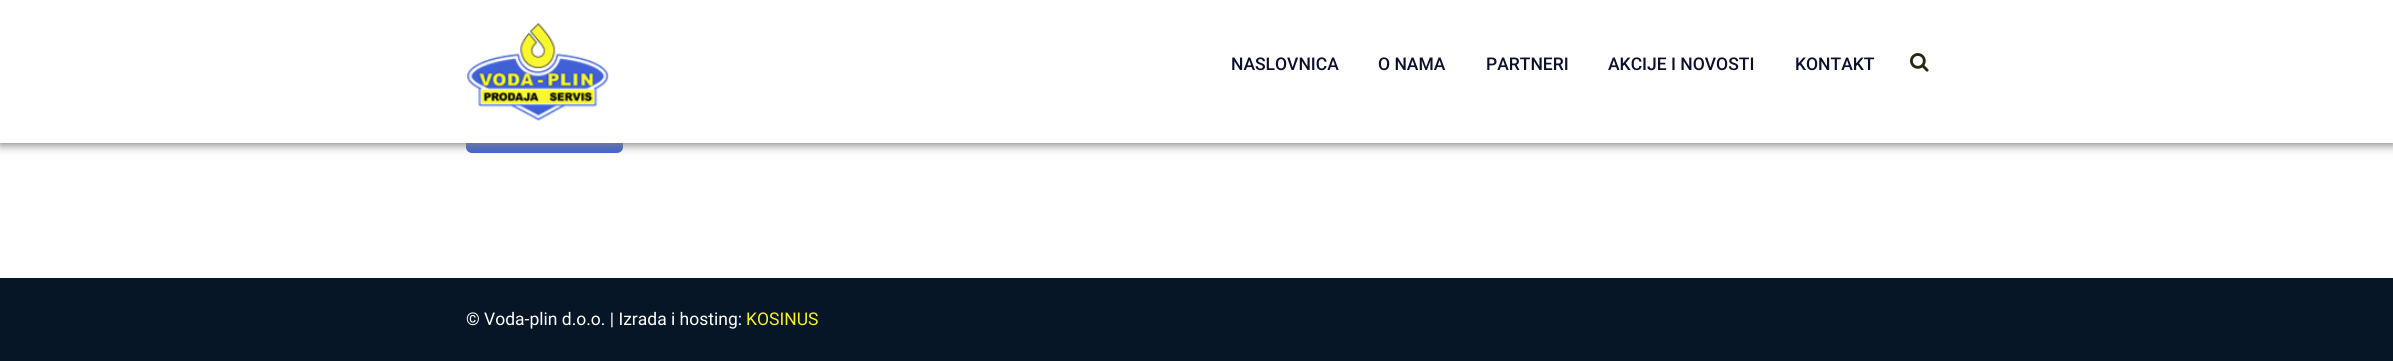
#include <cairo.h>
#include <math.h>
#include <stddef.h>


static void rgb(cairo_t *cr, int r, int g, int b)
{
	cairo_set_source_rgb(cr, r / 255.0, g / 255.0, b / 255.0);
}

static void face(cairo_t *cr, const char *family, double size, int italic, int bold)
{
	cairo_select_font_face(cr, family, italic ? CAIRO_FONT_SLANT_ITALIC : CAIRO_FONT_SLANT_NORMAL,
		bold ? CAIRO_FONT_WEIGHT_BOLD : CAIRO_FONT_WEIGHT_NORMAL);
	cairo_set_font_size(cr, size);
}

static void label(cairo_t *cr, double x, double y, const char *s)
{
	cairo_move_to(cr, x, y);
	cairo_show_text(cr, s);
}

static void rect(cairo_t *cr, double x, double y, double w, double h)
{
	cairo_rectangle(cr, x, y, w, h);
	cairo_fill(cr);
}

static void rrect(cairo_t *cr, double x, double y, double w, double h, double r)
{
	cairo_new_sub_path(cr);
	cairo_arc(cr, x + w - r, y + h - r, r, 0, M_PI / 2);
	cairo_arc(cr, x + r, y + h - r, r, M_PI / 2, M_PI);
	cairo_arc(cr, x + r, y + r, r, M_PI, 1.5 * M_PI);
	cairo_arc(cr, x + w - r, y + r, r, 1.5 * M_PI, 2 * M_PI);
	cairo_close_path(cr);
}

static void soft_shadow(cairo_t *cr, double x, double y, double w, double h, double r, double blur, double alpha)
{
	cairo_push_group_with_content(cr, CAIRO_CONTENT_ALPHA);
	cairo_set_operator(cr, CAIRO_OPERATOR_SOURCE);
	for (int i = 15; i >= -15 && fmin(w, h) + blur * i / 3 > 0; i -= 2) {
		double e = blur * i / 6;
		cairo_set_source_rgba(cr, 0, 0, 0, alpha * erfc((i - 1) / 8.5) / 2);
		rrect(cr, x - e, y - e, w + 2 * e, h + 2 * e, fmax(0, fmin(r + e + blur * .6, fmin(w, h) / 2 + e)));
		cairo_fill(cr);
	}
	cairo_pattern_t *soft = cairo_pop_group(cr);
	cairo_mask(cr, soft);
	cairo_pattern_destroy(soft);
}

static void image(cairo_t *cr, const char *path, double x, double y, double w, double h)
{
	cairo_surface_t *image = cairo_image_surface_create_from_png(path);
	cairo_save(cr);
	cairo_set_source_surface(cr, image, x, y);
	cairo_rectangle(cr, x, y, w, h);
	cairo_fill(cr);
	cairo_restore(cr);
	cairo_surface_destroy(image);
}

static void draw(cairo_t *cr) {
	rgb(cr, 255, 255, 255);
	cairo_paint(cr);
	rgb(cr, 67, 99, 210);
	rrect(cr, 466, 105, 157, 48, 6);
	cairo_fill(cr);
	rgb(cr, 128, 128, 128);
	soft_shadow(cr, 0, 3, 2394, 142, 0, 5, 1);
	rgb(cr, 255, 255, 255);
	rect(cr, 0, 0, 2393, 143);
	image(cr, "image0.png", 467, 23, 142, 98);
	face(cr, "Roboto Medium", 17.5, 0, 0);
	rgb(cr, 10, 15, 43);
	label(cr, 1231, 70, "NASLOVNICA");
	label(cr, 1378, 70, "O NAMA");
	label(cr, 1486, 70, "PARTNERI");
	label(cr, 1608, 70, "AKCIJE I NOVOSTI");
	label(cr, 1795, 70, "KONTAKT");
	image(cr, "image1.png", 1910, 53, 19, 19);
	rgb(cr, 6, 22, 39);
	rect(cr, 0, 278, 2393, 83);
	face(cr, "Roboto", 17.5, 0, 0);
	rgb(cr, 255, 255, 255);
	label(cr, 466, 325, "© Voda-plin d.o.o. | Izrada i hosting:");
	rgb(cr, 246, 239, 43);
	label(cr, 746, 325, "KOSINUS");
}

int main(void) {
	cairo_surface_t *surface = cairo_image_surface_create(CAIRO_FORMAT_RGB24, 2393, 361);
	cairo_t *cr = cairo_create(surface);
	cairo_font_options_t *options = cairo_font_options_create();
	cairo_font_options_set_hint_metrics(options, CAIRO_HINT_METRICS_OFF);
	cairo_font_options_set_hint_style(options, CAIRO_HINT_STYLE_NONE);
	cairo_set_font_options(cr, options);
	cairo_set_miter_limit(cr, 4);
	draw(cr);
	cairo_surface_write_to_png(surface, "render.png");
	cairo_font_options_destroy(options);
	cairo_destroy(cr);
	cairo_surface_destroy(surface);
	return 0;
}
